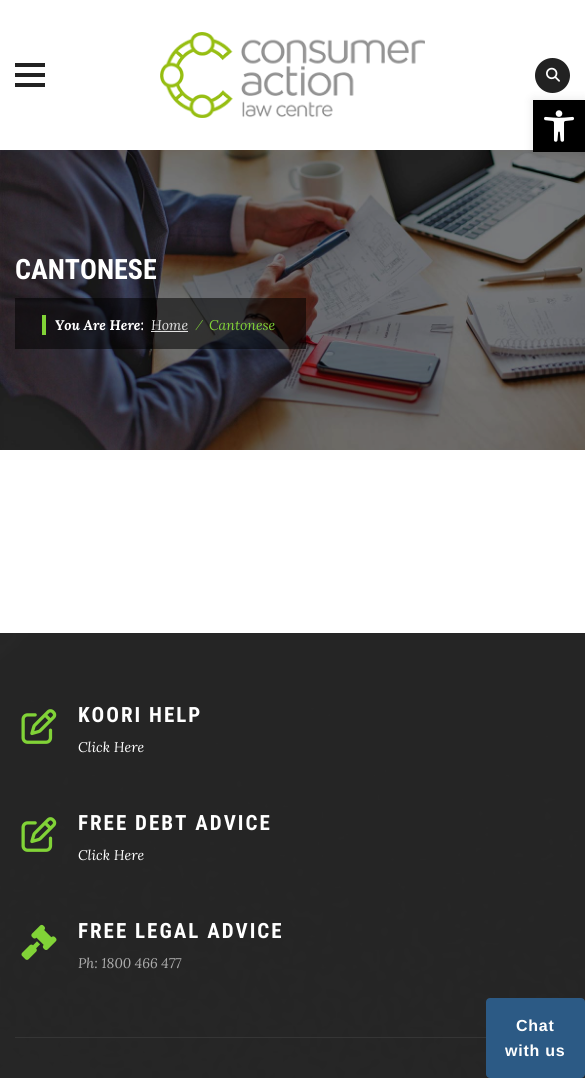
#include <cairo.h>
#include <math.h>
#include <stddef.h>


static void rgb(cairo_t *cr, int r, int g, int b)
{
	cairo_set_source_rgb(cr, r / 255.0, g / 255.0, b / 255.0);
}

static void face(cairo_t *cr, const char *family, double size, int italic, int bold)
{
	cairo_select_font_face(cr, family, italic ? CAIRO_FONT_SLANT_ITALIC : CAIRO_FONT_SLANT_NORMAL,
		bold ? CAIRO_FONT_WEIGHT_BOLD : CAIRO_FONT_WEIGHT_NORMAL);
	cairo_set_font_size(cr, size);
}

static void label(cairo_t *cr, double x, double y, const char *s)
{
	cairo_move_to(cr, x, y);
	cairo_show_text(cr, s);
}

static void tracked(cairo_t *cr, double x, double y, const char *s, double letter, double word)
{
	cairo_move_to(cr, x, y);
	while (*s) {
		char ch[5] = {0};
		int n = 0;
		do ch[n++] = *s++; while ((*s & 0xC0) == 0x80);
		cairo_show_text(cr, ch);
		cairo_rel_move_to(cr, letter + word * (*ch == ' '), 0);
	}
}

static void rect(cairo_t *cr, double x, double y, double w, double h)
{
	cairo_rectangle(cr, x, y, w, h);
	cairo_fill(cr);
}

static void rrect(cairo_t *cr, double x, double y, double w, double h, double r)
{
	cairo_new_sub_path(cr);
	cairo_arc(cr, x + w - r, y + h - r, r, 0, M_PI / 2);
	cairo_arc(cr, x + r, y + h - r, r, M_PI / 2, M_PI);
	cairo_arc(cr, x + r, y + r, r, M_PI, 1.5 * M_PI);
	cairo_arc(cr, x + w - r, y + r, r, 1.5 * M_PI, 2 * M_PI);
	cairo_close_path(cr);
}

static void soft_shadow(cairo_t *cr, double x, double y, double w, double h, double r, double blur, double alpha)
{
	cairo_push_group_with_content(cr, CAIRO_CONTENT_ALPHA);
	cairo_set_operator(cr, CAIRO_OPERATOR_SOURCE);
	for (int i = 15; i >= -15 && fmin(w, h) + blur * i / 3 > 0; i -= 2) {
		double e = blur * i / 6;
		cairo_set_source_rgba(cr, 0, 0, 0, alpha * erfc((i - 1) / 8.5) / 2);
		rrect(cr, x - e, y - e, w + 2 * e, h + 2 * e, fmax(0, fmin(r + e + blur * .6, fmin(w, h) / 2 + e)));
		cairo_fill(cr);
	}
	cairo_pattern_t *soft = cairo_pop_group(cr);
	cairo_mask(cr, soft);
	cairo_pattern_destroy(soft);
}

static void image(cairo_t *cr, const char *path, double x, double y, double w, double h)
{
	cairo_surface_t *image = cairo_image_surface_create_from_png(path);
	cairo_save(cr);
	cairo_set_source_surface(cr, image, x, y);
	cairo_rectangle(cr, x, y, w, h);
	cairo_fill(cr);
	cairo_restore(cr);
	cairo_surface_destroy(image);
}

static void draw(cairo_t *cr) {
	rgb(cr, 255, 255, 255);
	cairo_paint(cr);
	rgb(cr, 34, 34, 34);
	cairo_arc(cr, 552.5, 75.5, 17.5, 0, 2 * M_PI);
	cairo_fill(cr);
	image(cr, "image3.png", 0, 150, 585, 300);
	rgb(cr, 0, 0, 0);
	soft_shadow(cr, 533, 100, 52, 52, 0, 5, 0.1);
	rgb(cr, 0, 0, 0);
	rect(cr, 533, 100, 52, 52);
	image(cr, "image0.png", 544, 110, 30, 32);
	rgb(cr, 34, 34, 34);
	rect(cr, 15, 73, 30, 4);
	rect(cr, 15, 63, 30, 4);
	rect(cr, 15, 83, 30, 4);
	image(cr, "image1.png", 160, 32, 265, 86);
	image(cr, "image2.png", 546, 67, 14, 15);
	face(cr, "Roboto Condensed", 28, 0, 1);
	rgb(cr, 255, 255, 255);
	label(cr, 15, 279, "CANTONESE");
	cairo_set_source_rgba(cr, 0, 0, 0, 0.54);
	rect(cr, 15, 298, 291, 51);
	rgb(cr, 129, 211, 55);
	rect(cr, 42, 315, 4, 20);
	face(cr, "Lora", 14, 1, 1);
	rgb(cr, 255, 255, 255);
	label(cr, 55, 330, "You Are Here:");
	face(cr, "Lora", 14, 1, 0);
	rgb(cr, 226, 226, 226);
	label(cr, 151, 330, "Home");
	cairo_set_source_rgba(cr, 1, 1, 1, 0.86);
	rect(cr, 151, 331, 37, 1);
	rgb(cr, 129, 211, 55);
	label(cr, 196, 330, "⁄");
	label(cr, 209, 330, "Cantonese");
	image(cr, "image4.png", 0, 633, 585, 445);
	image(cr, "image5.png", 21, 709, 36, 35);
	face(cr, "Roboto Condensed", 21, 0, 1);
	rgb(cr, 255, 255, 255);
	tracked(cr, 78, 722, "KOORI HELP", 2, 0);
	face(cr, "Lora", 14, 1, 0);
	label(cr, 78, 752, "Click Here");
	image(cr, "image6.png", 21, 817, 36, 35);
	face(cr, "Roboto Condensed", 21, 0, 1);
	tracked(cr, 78, 830, "FREE DEBT ADVICE", 2, 0);
	face(cr, "Lora", 14, 1, 0);
	label(cr, 78, 860, "Click Here");
	image(cr, "image7.png", 21, 924, 36, 36);
	face(cr, "Roboto Condensed", 21, 0, 1);
	tracked(cr, 78, 938, "FREE LEGAL ADVICE", 2, 0);
	face(cr, "Lora", 14, 1, 0);
	rgb(cr, 173, 173, 173);
	label(cr, 78, 968, "Ph: 1800 466 477");
	rgb(cr, 53, 53, 53);
	rect(cr, 15, 1037, 471, 1);
	rgb(cr, 128, 128, 128);
	soft_shadow(cr, 515, 1004, 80, 60, 2, 2.5, 1);
	rgb(cr, 44, 90, 133);
	rrect(cr, 488.5, 1000.5, 94, 75, 1.5);
	cairo_fill_preserve(cr);
	cairo_set_line_width(cr, 5);
	cairo_stroke(cr);
	face(cr, "Liberation Sans", 16, 0, 1);
	rgb(cr, 255, 255, 255);
	tracked(cr, 516, 1031, "Chat", 0.75, 0);
	tracked(cr, 505, 1056, "with us", 0.75, 0);
}

int main(void) {
	cairo_surface_t *surface = cairo_image_surface_create(CAIRO_FORMAT_RGB24, 585, 1078);
	cairo_t *cr = cairo_create(surface);
	cairo_font_options_t *options = cairo_font_options_create();
	cairo_font_options_set_hint_metrics(options, CAIRO_HINT_METRICS_OFF);
	cairo_font_options_set_hint_style(options, CAIRO_HINT_STYLE_NONE);
	cairo_set_font_options(cr, options);
	cairo_set_miter_limit(cr, 4);
	draw(cr);
	cairo_surface_write_to_png(surface, "render.png");
	cairo_font_options_destroy(options);
	cairo_destroy(cr);
	cairo_surface_destroy(surface);
	return 0;
}
